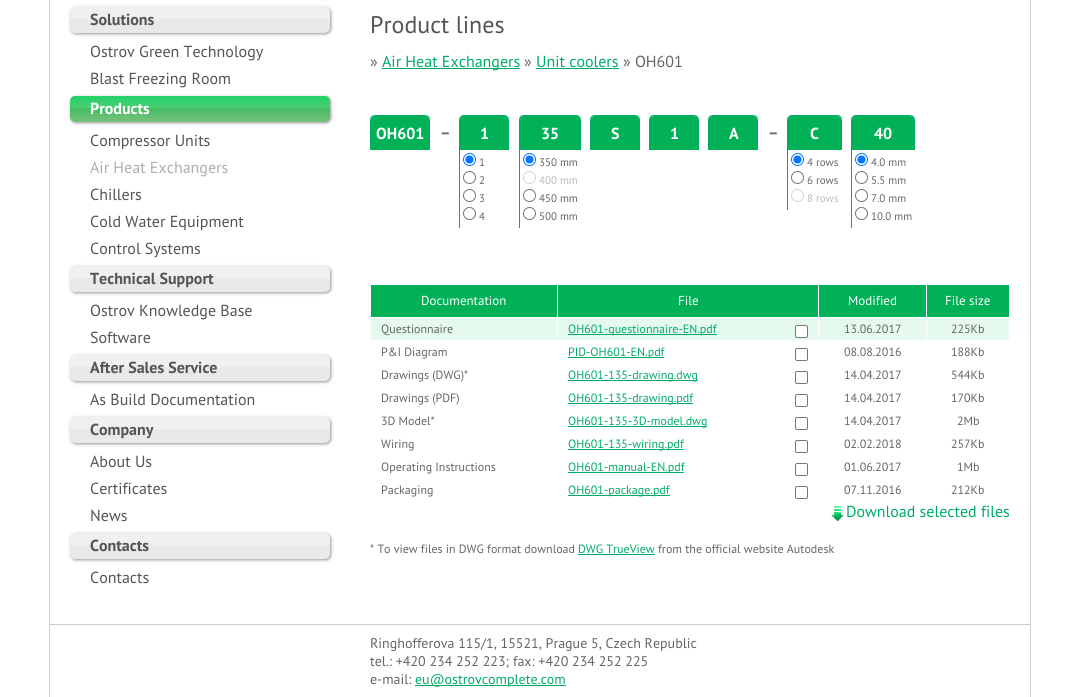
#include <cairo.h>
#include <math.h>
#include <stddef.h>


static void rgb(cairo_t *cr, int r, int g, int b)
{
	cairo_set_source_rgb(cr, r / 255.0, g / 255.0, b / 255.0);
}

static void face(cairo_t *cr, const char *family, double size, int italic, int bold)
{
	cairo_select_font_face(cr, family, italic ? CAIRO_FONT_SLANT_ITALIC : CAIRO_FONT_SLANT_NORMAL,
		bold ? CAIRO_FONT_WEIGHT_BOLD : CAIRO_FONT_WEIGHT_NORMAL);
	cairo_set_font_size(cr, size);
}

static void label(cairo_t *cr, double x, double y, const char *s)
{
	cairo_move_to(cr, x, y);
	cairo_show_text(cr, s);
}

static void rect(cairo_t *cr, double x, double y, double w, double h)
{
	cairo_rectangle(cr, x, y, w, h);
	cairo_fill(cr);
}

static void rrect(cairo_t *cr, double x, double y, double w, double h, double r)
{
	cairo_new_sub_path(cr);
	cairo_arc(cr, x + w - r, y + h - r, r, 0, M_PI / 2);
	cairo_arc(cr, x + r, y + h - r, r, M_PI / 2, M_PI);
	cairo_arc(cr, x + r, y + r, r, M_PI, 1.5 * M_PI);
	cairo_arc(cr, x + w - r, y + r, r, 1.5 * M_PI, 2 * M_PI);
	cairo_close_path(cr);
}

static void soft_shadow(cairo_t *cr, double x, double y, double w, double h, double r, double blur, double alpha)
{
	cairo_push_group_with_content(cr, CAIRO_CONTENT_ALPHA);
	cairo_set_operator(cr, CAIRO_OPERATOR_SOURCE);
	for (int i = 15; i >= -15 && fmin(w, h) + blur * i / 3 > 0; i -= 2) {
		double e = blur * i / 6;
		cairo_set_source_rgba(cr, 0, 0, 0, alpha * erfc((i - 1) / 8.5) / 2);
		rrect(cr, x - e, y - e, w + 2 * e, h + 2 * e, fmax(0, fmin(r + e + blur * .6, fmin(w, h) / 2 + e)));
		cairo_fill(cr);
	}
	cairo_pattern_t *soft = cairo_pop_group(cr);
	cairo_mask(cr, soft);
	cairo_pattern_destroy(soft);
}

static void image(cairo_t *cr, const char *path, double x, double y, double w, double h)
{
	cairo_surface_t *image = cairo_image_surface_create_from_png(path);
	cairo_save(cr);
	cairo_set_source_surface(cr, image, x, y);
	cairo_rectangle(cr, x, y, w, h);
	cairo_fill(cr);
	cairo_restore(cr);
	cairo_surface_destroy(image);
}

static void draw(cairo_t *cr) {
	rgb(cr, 255, 255, 255);
	cairo_paint(cr);
	rgb(cr, 205, 205, 205);
	rect(cr, 1030, 0, 1, 624);
	rect(cr, 49, 0, 1, 624);
	rgb(cr, 0, 0, 0);
	soft_shadow(cr, 71, 8, 260, 26, 5, 1.5, 0.42);
	image(cr, "image0.png", 70, 7, 260, 26);
	face(cr, "PT Sans", 16, 0, 1);
	rgb(cr, 84, 84, 84);
	label(cr, 90, 25, "Solutions");
	face(cr, "PT Sans", 16, 0, 0);
	label(cr, 90, 57, "Ostrov Green Technology");
	label(cr, 90, 84, "Blast Freezing Room");
	rgb(cr, 0, 0, 0);
	soft_shadow(cr, 71, 97, 260, 26, 5, 1.5, 0.42);
	image(cr, "image1.png", 70, 96, 260, 26);
	face(cr, "PT Sans", 16, 0, 1);
	rgb(cr, 255, 255, 255);
	label(cr, 90, 114, "Products");
	face(cr, "PT Sans", 16, 0, 0);
	rgb(cr, 84, 84, 84);
	label(cr, 90, 146, "Compressor Units");
	rgb(cr, 173, 173, 173);
	label(cr, 90, 173, "Air Heat Exchangers");
	rgb(cr, 84, 84, 84);
	label(cr, 90, 200, "Chillers");
	label(cr, 90, 227, "Cold Water Equipment");
	label(cr, 90, 254, "Control Systems");
	rgb(cr, 0, 0, 0);
	soft_shadow(cr, 71, 267, 260, 26, 5, 1.5, 0.42);
	image(cr, "image0.png", 70, 266, 260, 26);
	face(cr, "PT Sans", 16, 0, 1);
	rgb(cr, 84, 84, 84);
	label(cr, 90, 284, "Technical Support");
	face(cr, "PT Sans", 16, 0, 0);
	label(cr, 90, 316, "Ostrov Knowledge Base");
	label(cr, 90, 343, "Software");
	rgb(cr, 0, 0, 0);
	soft_shadow(cr, 71, 356, 260, 26, 5, 1.5, 0.42);
	image(cr, "image0.png", 70, 355, 260, 26);
	face(cr, "PT Sans", 16, 0, 1);
	rgb(cr, 84, 84, 84);
	label(cr, 90, 373, "After Sales Service");
	face(cr, "PT Sans", 16, 0, 0);
	label(cr, 90, 405, "As Build Documentation");
	rgb(cr, 0, 0, 0);
	soft_shadow(cr, 71, 418, 260, 26, 5, 1.5, 0.42);
	image(cr, "image0.png", 70, 417, 260, 26);
	face(cr, "PT Sans", 16, 0, 1);
	rgb(cr, 84, 84, 84);
	label(cr, 90, 435, "Company");
	face(cr, "PT Sans", 16, 0, 0);
	label(cr, 90, 467, "About Us");
	label(cr, 90, 494, "Certificates");
	label(cr, 90, 521, "News");
	rgb(cr, 0, 0, 0);
	soft_shadow(cr, 71, 534, 260, 26, 5, 1.5, 0.42);
	image(cr, "image0.png", 70, 533, 260, 26);
	face(cr, "PT Sans", 16, 0, 1);
	rgb(cr, 84, 84, 84);
	label(cr, 90, 551, "Contacts");
	face(cr, "PT Sans", 16, 0, 0);
	label(cr, 90, 583, "Contacts");
	face(cr, "PT Sans", 24, 0, 0);
	label(cr, 370, 33, "Product lines");
	face(cr, "PT Sans", 16, 0, 0);
	rgb(cr, 101, 101, 101);
	label(cr, 370, 67, "»");
	rgb(cr, 0, 171, 103);
	rect(cr, 382, 68, 138, 1);
	label(cr, 382, 67, "Air Heat Exchangers");
	rgb(cr, 101, 101, 101);
	label(cr, 524, 67, "»");
	rgb(cr, 0, 171, 103);
	label(cr, 536, 67, "Unit coolers");
	rect(cr, 536, 68, 83, 1);
	rgb(cr, 101, 101, 101);
	label(cr, 623, 67, "» OH601");
	rgb(cr, 0, 177, 87);
	cairo_new_path(cr);
	cairo_move_to(cr, 375, 116);
	cairo_line_to(cr, 425, 116);
	cairo_curve_to(cr, 427, 116, 429, 118, 429, 120);
	cairo_line_to(cr, 429, 150);
	cairo_line_to(cr, 371, 150);
	cairo_line_to(cr, 371, 120);
	cairo_curve_to(cr, 371, 118, 373, 116, 375, 116);
	cairo_close_path(cr);
	cairo_fill(cr);
	rgb(cr, 0, 171, 103);
	cairo_set_fill_rule(cr, CAIRO_FILL_RULE_EVEN_ODD);
	cairo_new_path(cr);
	cairo_move_to(cr, 375, 115);
	cairo_line_to(cr, 425, 115);
	cairo_curve_to(cr, 428, 115, 430, 117, 430, 120);
	cairo_line_to(cr, 430, 150);
	cairo_line_to(cr, 370, 150);
	cairo_line_to(cr, 370, 120);
	cairo_curve_to(cr, 370, 117, 372, 115, 375, 115);
	cairo_close_path(cr);
	cairo_move_to(cr, 375, 116);
	cairo_line_to(cr, 425, 116);
	cairo_curve_to(cr, 427, 116, 429, 118, 429, 120);
	cairo_line_to(cr, 429, 150);
	cairo_line_to(cr, 371, 150);
	cairo_line_to(cr, 371, 120);
	cairo_curve_to(cr, 371, 118, 373, 116, 375, 116);
	cairo_close_path(cr);
	cairo_fill(cr);
	face(cr, "PT Sans", 16, 0, 1);
	rgb(cr, 255, 255, 255);
	label(cr, 376, 139, "OH601");
	rgb(cr, 101, 101, 101);
	label(cr, 440, 138, "–");
	rgb(cr, 0, 177, 87);
	cairo_new_path(cr);
	cairo_move_to(cr, 464, 116);
	cairo_line_to(cr, 504, 116);
	cairo_curve_to(cr, 506, 116, 508, 118, 508, 120);
	cairo_line_to(cr, 508, 150);
	cairo_line_to(cr, 460, 150);
	cairo_line_to(cr, 460, 120);
	cairo_curve_to(cr, 460, 118, 462, 116, 464, 116);
	cairo_close_path(cr);
	cairo_fill(cr);
	rgb(cr, 0, 171, 103);
	cairo_new_path(cr);
	cairo_move_to(cr, 464, 115);
	cairo_line_to(cr, 504, 115);
	cairo_curve_to(cr, 507, 115, 509, 117, 509, 120);
	cairo_line_to(cr, 509, 150);
	cairo_line_to(cr, 459, 150);
	cairo_line_to(cr, 459, 120);
	cairo_curve_to(cr, 459, 117, 461, 115, 464, 115);
	cairo_close_path(cr);
	cairo_move_to(cr, 464, 116);
	cairo_line_to(cr, 504, 116);
	cairo_curve_to(cr, 506, 116, 508, 118, 508, 120);
	cairo_line_to(cr, 508, 150);
	cairo_line_to(cr, 460, 150);
	cairo_line_to(cr, 460, 120);
	cairo_curve_to(cr, 460, 118, 462, 116, 464, 116);
	cairo_close_path(cr);
	cairo_fill(cr);
	rgb(cr, 255, 255, 255);
	label(cr, 480, 139, "1");
	rgb(cr, 0, 171, 103);
	rect(cr, 459, 150, 1, 78);
	cairo_new_path(cr);
	cairo_arc(cr, 469.5, 159.5, 6, 0, 2 * M_PI);
	rgb(cr, 0, 117, 255);
	cairo_set_line_width(cr, 1);
	cairo_stroke(cr);
	cairo_arc(cr, 469.5, 159.5, 4, 0, 2 * M_PI);
	cairo_fill(cr);
	face(cr, "PT Sans", 11, 0, 0);
	rgb(cr, 101, 101, 101);
	label(cr, 479, 166, "1");
	cairo_new_path(cr);
	cairo_arc(cr, 469.5, 177.5, 6, 0, 2 * M_PI);
	rgb(cr, 118, 118, 118);
	cairo_stroke(cr);
	rgb(cr, 101, 101, 101);
	label(cr, 479, 184, "2");
	cairo_new_path(cr);
	cairo_arc(cr, 469.5, 195.5, 6, 0, 2 * M_PI);
	rgb(cr, 118, 118, 118);
	cairo_stroke(cr);
	rgb(cr, 101, 101, 101);
	label(cr, 479, 202, "3");
	cairo_new_path(cr);
	cairo_arc(cr, 469.5, 213.5, 6, 0, 2 * M_PI);
	rgb(cr, 118, 118, 118);
	cairo_stroke(cr);
	rgb(cr, 101, 101, 101);
	label(cr, 479, 220, "4");
	rgb(cr, 0, 177, 87);
	cairo_new_path(cr);
	cairo_move_to(cr, 524, 116);
	cairo_line_to(cr, 576, 116);
	cairo_curve_to(cr, 578, 116, 580, 118, 580, 120);
	cairo_line_to(cr, 580, 150);
	cairo_line_to(cr, 520, 150);
	cairo_line_to(cr, 520, 120);
	cairo_curve_to(cr, 520, 118, 522, 116, 524, 116);
	cairo_close_path(cr);
	cairo_fill(cr);
	rgb(cr, 0, 171, 103);
	cairo_new_path(cr);
	cairo_move_to(cr, 524, 115);
	cairo_line_to(cr, 576, 115);
	cairo_curve_to(cr, 579, 115, 581, 117, 581, 120);
	cairo_line_to(cr, 581, 150);
	cairo_line_to(cr, 519, 150);
	cairo_line_to(cr, 519, 120);
	cairo_curve_to(cr, 519, 117, 521, 115, 524, 115);
	cairo_close_path(cr);
	cairo_move_to(cr, 524, 116);
	cairo_line_to(cr, 576, 116);
	cairo_curve_to(cr, 578, 116, 580, 118, 580, 120);
	cairo_line_to(cr, 580, 150);
	cairo_line_to(cr, 520, 150);
	cairo_line_to(cr, 520, 120);
	cairo_curve_to(cr, 520, 118, 522, 116, 524, 116);
	cairo_close_path(cr);
	cairo_fill(cr);
	face(cr, "PT Sans", 16, 0, 1);
	rgb(cr, 255, 255, 255);
	label(cr, 541, 139, "35");
	rgb(cr, 0, 171, 103);
	rect(cr, 519, 150, 1, 78);
	cairo_new_path(cr);
	cairo_arc(cr, 529.5, 159.5, 6, 0, 2 * M_PI);
	rgb(cr, 0, 117, 255);
	cairo_stroke(cr);
	cairo_arc(cr, 529.5, 159.5, 4, 0, 2 * M_PI);
	cairo_fill(cr);
	face(cr, "PT Sans", 11, 0, 0);
	rgb(cr, 101, 101, 101);
	label(cr, 539, 166, "350 mm");
	cairo_new_path(cr);
	cairo_arc(cr, 529.5, 177.5, 6, 0, 2 * M_PI);
	rgb(cr, 214, 214, 214);
	cairo_stroke(cr);
	rgb(cr, 187, 187, 187);
	label(cr, 539, 184, "400 mm");
	cairo_new_path(cr);
	cairo_arc(cr, 529.5, 195.5, 6, 0, 2 * M_PI);
	rgb(cr, 118, 118, 118);
	cairo_stroke(cr);
	rgb(cr, 101, 101, 101);
	label(cr, 539, 202, "450 mm");
	cairo_new_path(cr);
	cairo_arc(cr, 529.5, 213.5, 6, 0, 2 * M_PI);
	rgb(cr, 118, 118, 118);
	cairo_stroke(cr);
	rgb(cr, 101, 101, 101);
	label(cr, 539, 220, "500 mm");
	rgb(cr, 0, 177, 87);
	cairo_new_path(cr);
	cairo_move_to(cr, 595, 116);
	cairo_line_to(cr, 635, 116);
	cairo_curve_to(cr, 637, 116, 639, 118, 639, 120);
	cairo_line_to(cr, 639, 150);
	cairo_line_to(cr, 591, 150);
	cairo_line_to(cr, 591, 120);
	cairo_curve_to(cr, 591, 118, 593, 116, 595, 116);
	cairo_close_path(cr);
	cairo_fill(cr);
	rgb(cr, 0, 171, 103);
	cairo_new_path(cr);
	cairo_move_to(cr, 595, 115);
	cairo_line_to(cr, 635, 115);
	cairo_curve_to(cr, 638, 115, 640, 117, 640, 120);
	cairo_line_to(cr, 640, 150);
	cairo_line_to(cr, 590, 150);
	cairo_line_to(cr, 590, 120);
	cairo_curve_to(cr, 590, 117, 592, 115, 595, 115);
	cairo_close_path(cr);
	cairo_move_to(cr, 595, 116);
	cairo_line_to(cr, 635, 116);
	cairo_curve_to(cr, 637, 116, 639, 118, 639, 120);
	cairo_line_to(cr, 639, 150);
	cairo_line_to(cr, 591, 150);
	cairo_line_to(cr, 591, 120);
	cairo_curve_to(cr, 591, 118, 593, 116, 595, 116);
	cairo_close_path(cr);
	cairo_fill(cr);
	face(cr, "PT Sans", 16, 0, 1);
	rgb(cr, 255, 255, 255);
	label(cr, 611, 139, "S");
	rgb(cr, 0, 177, 87);
	cairo_new_path(cr);
	cairo_move_to(cr, 654, 116);
	cairo_line_to(cr, 694, 116);
	cairo_curve_to(cr, 696, 116, 698, 118, 698, 120);
	cairo_line_to(cr, 698, 150);
	cairo_line_to(cr, 650, 150);
	cairo_line_to(cr, 650, 120);
	cairo_curve_to(cr, 650, 118, 652, 116, 654, 116);
	cairo_close_path(cr);
	cairo_fill(cr);
	rgb(cr, 0, 171, 103);
	cairo_new_path(cr);
	cairo_move_to(cr, 654, 115);
	cairo_line_to(cr, 694, 115);
	cairo_curve_to(cr, 697, 115, 699, 117, 699, 120);
	cairo_line_to(cr, 699, 150);
	cairo_line_to(cr, 649, 150);
	cairo_line_to(cr, 649, 120);
	cairo_curve_to(cr, 649, 117, 651, 115, 654, 115);
	cairo_close_path(cr);
	cairo_move_to(cr, 654, 116);
	cairo_line_to(cr, 694, 116);
	cairo_curve_to(cr, 696, 116, 698, 118, 698, 120);
	cairo_line_to(cr, 698, 150);
	cairo_line_to(cr, 650, 150);
	cairo_line_to(cr, 650, 120);
	cairo_curve_to(cr, 650, 118, 652, 116, 654, 116);
	cairo_close_path(cr);
	cairo_fill(cr);
	rgb(cr, 255, 255, 255);
	label(cr, 670, 139, "1");
	rgb(cr, 0, 177, 87);
	cairo_new_path(cr);
	cairo_move_to(cr, 713, 116);
	cairo_line_to(cr, 753, 116);
	cairo_curve_to(cr, 755, 116, 757, 118, 757, 120);
	cairo_line_to(cr, 757, 150);
	cairo_line_to(cr, 709, 150);
	cairo_line_to(cr, 709, 120);
	cairo_curve_to(cr, 709, 118, 711, 116, 713, 116);
	cairo_close_path(cr);
	cairo_fill(cr);
	rgb(cr, 0, 171, 103);
	cairo_new_path(cr);
	cairo_move_to(cr, 713, 115);
	cairo_line_to(cr, 753, 115);
	cairo_curve_to(cr, 756, 115, 758, 117, 758, 120);
	cairo_line_to(cr, 758, 150);
	cairo_line_to(cr, 708, 150);
	cairo_line_to(cr, 708, 120);
	cairo_curve_to(cr, 708, 117, 710, 115, 713, 115);
	cairo_close_path(cr);
	cairo_move_to(cr, 713, 116);
	cairo_line_to(cr, 753, 116);
	cairo_curve_to(cr, 755, 116, 757, 118, 757, 120);
	cairo_line_to(cr, 757, 150);
	cairo_line_to(cr, 709, 150);
	cairo_line_to(cr, 709, 120);
	cairo_curve_to(cr, 709, 118, 711, 116, 713, 116);
	cairo_close_path(cr);
	cairo_fill(cr);
	rgb(cr, 255, 255, 255);
	label(cr, 729, 139, "A");
	rgb(cr, 101, 101, 101);
	label(cr, 768, 138, "–");
	rgb(cr, 0, 177, 87);
	cairo_new_path(cr);
	cairo_move_to(cr, 792, 116);
	cairo_line_to(cr, 837, 116);
	cairo_curve_to(cr, 839, 116, 841, 118, 841, 120);
	cairo_line_to(cr, 841, 150);
	cairo_line_to(cr, 788, 150);
	cairo_line_to(cr, 788, 120);
	cairo_curve_to(cr, 788, 118, 790, 116, 792, 116);
	cairo_close_path(cr);
	cairo_fill(cr);
	rgb(cr, 0, 171, 103);
	cairo_new_path(cr);
	cairo_move_to(cr, 792, 115);
	cairo_line_to(cr, 837, 115);
	cairo_curve_to(cr, 840, 115, 842, 117, 842, 120);
	cairo_line_to(cr, 842, 150);
	cairo_line_to(cr, 787, 150);
	cairo_line_to(cr, 787, 120);
	cairo_curve_to(cr, 787, 117, 789, 115, 792, 115);
	cairo_close_path(cr);
	cairo_move_to(cr, 792, 116);
	cairo_line_to(cr, 837, 116);
	cairo_curve_to(cr, 839, 116, 841, 118, 841, 120);
	cairo_line_to(cr, 841, 150);
	cairo_line_to(cr, 788, 150);
	cairo_line_to(cr, 788, 120);
	cairo_curve_to(cr, 788, 118, 790, 116, 792, 116);
	cairo_close_path(cr);
	cairo_fill(cr);
	rgb(cr, 255, 255, 255);
	label(cr, 810, 139, "C");
	rgb(cr, 0, 171, 103);
	rect(cr, 787, 150, 1, 60);
	cairo_new_path(cr);
	cairo_arc(cr, 797.5, 159.5, 6, 0, 2 * M_PI);
	rgb(cr, 0, 117, 255);
	cairo_stroke(cr);
	cairo_arc(cr, 797.5, 159.5, 4, 0, 2 * M_PI);
	cairo_fill(cr);
	face(cr, "PT Sans", 11, 0, 0);
	rgb(cr, 101, 101, 101);
	label(cr, 807, 166, "4 rows");
	cairo_new_path(cr);
	cairo_arc(cr, 797.5, 177.5, 6, 0, 2 * M_PI);
	rgb(cr, 118, 118, 118);
	cairo_stroke(cr);
	rgb(cr, 101, 101, 101);
	label(cr, 807, 184, "6 rows");
	cairo_new_path(cr);
	cairo_arc(cr, 797.5, 195.5, 6, 0, 2 * M_PI);
	rgb(cr, 214, 214, 214);
	cairo_stroke(cr);
	rgb(cr, 187, 187, 187);
	label(cr, 807, 202, "8 rows");
	rgb(cr, 0, 177, 87);
	cairo_new_path(cr);
	cairo_move_to(cr, 856, 116);
	cairo_line_to(cr, 910, 116);
	cairo_curve_to(cr, 912, 116, 914, 118, 914, 120);
	cairo_line_to(cr, 914, 150);
	cairo_line_to(cr, 852, 150);
	cairo_line_to(cr, 852, 120);
	cairo_curve_to(cr, 852, 118, 854, 116, 856, 116);
	cairo_close_path(cr);
	cairo_fill(cr);
	rgb(cr, 0, 171, 103);
	cairo_new_path(cr);
	cairo_move_to(cr, 856, 115);
	cairo_line_to(cr, 910, 115);
	cairo_curve_to(cr, 913, 115, 915, 117, 915, 120);
	cairo_line_to(cr, 915, 150);
	cairo_line_to(cr, 851, 150);
	cairo_line_to(cr, 851, 120);
	cairo_curve_to(cr, 851, 117, 853, 115, 856, 115);
	cairo_close_path(cr);
	cairo_move_to(cr, 856, 116);
	cairo_line_to(cr, 910, 116);
	cairo_curve_to(cr, 912, 116, 914, 118, 914, 120);
	cairo_line_to(cr, 914, 150);
	cairo_line_to(cr, 852, 150);
	cairo_line_to(cr, 852, 120);
	cairo_curve_to(cr, 852, 118, 854, 116, 856, 116);
	cairo_close_path(cr);
	cairo_fill(cr);
	face(cr, "PT Sans", 16, 0, 1);
	rgb(cr, 255, 255, 255);
	label(cr, 874, 139, "40");
	rgb(cr, 0, 171, 103);
	rect(cr, 851, 150, 1, 78);
	cairo_new_path(cr);
	cairo_arc(cr, 861.5, 159.5, 6, 0, 2 * M_PI);
	rgb(cr, 0, 117, 255);
	cairo_stroke(cr);
	cairo_arc(cr, 861.5, 159.5, 4, 0, 2 * M_PI);
	cairo_fill(cr);
	face(cr, "PT Sans", 11, 0, 0);
	rgb(cr, 101, 101, 101);
	label(cr, 871, 166, "4.0 mm");
	cairo_new_path(cr);
	cairo_arc(cr, 861.5, 177.5, 6, 0, 2 * M_PI);
	rgb(cr, 118, 118, 118);
	cairo_stroke(cr);
	rgb(cr, 101, 101, 101);
	label(cr, 871, 184, "5.5 mm");
	cairo_new_path(cr);
	cairo_arc(cr, 861.5, 195.5, 6, 0, 2 * M_PI);
	rgb(cr, 118, 118, 118);
	cairo_stroke(cr);
	rgb(cr, 101, 101, 101);
	label(cr, 871, 202, "7.0 mm");
	cairo_new_path(cr);
	cairo_arc(cr, 861.5, 213.5, 6, 0, 2 * M_PI);
	rgb(cr, 118, 118, 118);
	cairo_stroke(cr);
	rgb(cr, 101, 101, 101);
	label(cr, 871, 220, "10.0 mm");
	rgb(cr, 0, 177, 87);
	rect(cr, 371, 285, 186, 32);
	face(cr, "PT Sans", 13, 0, 0);
	rgb(cr, 255, 255, 255);
	label(cr, 421, 305, "Documentation");
	rgb(cr, 0, 177, 87);
	rect(cr, 558, 285, 260, 32);
	rgb(cr, 255, 255, 255);
	label(cr, 678, 305, "File");
	rgb(cr, 0, 177, 87);
	rect(cr, 819, 285, 107, 32);
	rgb(cr, 255, 255, 255);
	label(cr, 848, 305, "Modified");
	rgb(cr, 0, 177, 87);
	rect(cr, 927, 285, 82, 32);
	rgb(cr, 255, 255, 255);
	label(cr, 945, 305, "File size");
	rgb(cr, 229, 249, 238);
	rect(cr, 371, 318, 638, 22);
	face(cr, "PT Sans", 12, 0, 0);
	rgb(cr, 101, 101, 101);
	label(cr, 381, 333, "Questionnaire");
	rgb(cr, 255, 255, 255);
	rect(cr, 557, 317, 1, 24);
	rgb(cr, 0, 171, 103);
	rect(cr, 568, 334, 149, 1);
	label(cr, 568, 333, "OH601-questionnaire-EN.pdf");
	rgb(cr, 255, 255, 255);
	rrect(cr, 795.5, 325.5, 12, 12, 1.5);
	cairo_fill_preserve(cr);
	rgb(cr, 118, 118, 118);
	cairo_stroke(cr);
	rgb(cr, 255, 255, 255);
	rect(cr, 818, 317, 1, 24);
	rgb(cr, 101, 101, 101);
	label(cr, 844, 333, "13.06.2017");
	rgb(cr, 255, 255, 255);
	rect(cr, 926, 317, 1, 24);
	rgb(cr, 101, 101, 101);
	label(cr, 951, 333, "225Kb");
	label(cr, 381, 356, "P&I Diagram");
	rgb(cr, 0, 171, 103);
	rect(cr, 568, 357, 96, 1);
	label(cr, 568, 356, "PID-OH601-EN.pdf");
	rrect(cr, 795.5, 348.5, 12, 12, 1.5);
	rgb(cr, 118, 118, 118);
	cairo_stroke(cr);
	rgb(cr, 101, 101, 101);
	label(cr, 844, 356, "08.08.2016");
	label(cr, 951, 356, "188Kb");
	label(cr, 381, 379, "Drawings (DWG)*");
	rgb(cr, 0, 171, 103);
	rect(cr, 568, 380, 130, 1);
	label(cr, 568, 379, "OH601-135-drawing.dwg");
	rrect(cr, 795.5, 371.5, 12, 12, 1.5);
	rgb(cr, 118, 118, 118);
	cairo_stroke(cr);
	rgb(cr, 101, 101, 101);
	label(cr, 844, 379, "14.04.2017");
	label(cr, 951, 379, "544Kb");
	label(cr, 381, 402, "Drawings (PDF)");
	rgb(cr, 0, 171, 103);
	rect(cr, 568, 403, 125, 1);
	label(cr, 568, 402, "OH601-135-drawing.pdf");
	rrect(cr, 795.5, 394.5, 12, 12, 1.5);
	rgb(cr, 118, 118, 118);
	cairo_stroke(cr);
	rgb(cr, 101, 101, 101);
	label(cr, 844, 402, "14.04.2017");
	label(cr, 951, 402, "170Kb");
	label(cr, 381, 425, "3D Model*");
	rgb(cr, 0, 171, 103);
	rect(cr, 568, 426, 139, 1);
	label(cr, 568, 425, "OH601-135-3D-model.dwg");
	rrect(cr, 795.5, 417.5, 12, 12, 1.5);
	rgb(cr, 118, 118, 118);
	cairo_stroke(cr);
	rgb(cr, 101, 101, 101);
	label(cr, 844, 425, "14.04.2017");
	label(cr, 957, 425, "2Mb");
	label(cr, 381, 448, "Wiring");
	rgb(cr, 0, 171, 103);
	rect(cr, 568, 449, 116, 1);
	label(cr, 568, 448, "OH601-135-wiring.pdf");
	rrect(cr, 795.5, 440.5, 12, 12, 1.5);
	rgb(cr, 118, 118, 118);
	cairo_stroke(cr);
	rgb(cr, 101, 101, 101);
	label(cr, 844, 448, "02.02.2018");
	label(cr, 951, 448, "257Kb");
	label(cr, 381, 471, "Operating Instructions");
	rgb(cr, 0, 171, 103);
	rect(cr, 568, 472, 116, 1);
	label(cr, 568, 471, "OH601-manual-EN.pdf");
	rrect(cr, 795.5, 463.5, 12, 12, 1.5);
	rgb(cr, 118, 118, 118);
	cairo_stroke(cr);
	rgb(cr, 101, 101, 101);
	label(cr, 844, 471, "01.06.2017");
	label(cr, 957, 471, "1Mb");
	label(cr, 381, 494, "Packaging");
	rgb(cr, 0, 171, 103);
	rect(cr, 568, 495, 102, 1);
	label(cr, 568, 494, "OH601-package.pdf");
	rrect(cr, 795.5, 486.5, 12, 12, 1.5);
	rgb(cr, 118, 118, 118);
	cairo_stroke(cr);
	rgb(cr, 101, 101, 101);
	label(cr, 844, 494, "07.11.2016");
	label(cr, 951, 494, "212Kb");
	image(cr, "image2.png", 831, 506, 13, 15);
	face(cr, "PT Sans", 16, 0, 0);
	rgb(cr, 0, 171, 103);
	label(cr, 846, 517, "Download selected files");
	face(cr, "PT Sans", 12, 0, 0);
	rgb(cr, 101, 101, 101);
	label(cr, 370, 553, "* To view files in DWG format download");
	rgb(cr, 0, 171, 103);
	label(cr, 578, 553, "DWG TrueView");
	rect(cr, 578, 554, 77, 1);
	rgb(cr, 101, 101, 101);
	label(cr, 658, 553, "from the official website Autodesk");
	rgb(cr, 205, 205, 205);
	rect(cr, 49, 624, 982, 1);
	rect(cr, 1030, 624, 1, 73);
	rect(cr, 49, 624, 1, 73);
	face(cr, "PT Sans", 14, 0, 0);
	rgb(cr, 101, 101, 101);
	label(cr, 370, 648, "Ringhofferova 115/1, 15521, Prague 5, Czech Republic");
	label(cr, 370, 666, "tel.: +420 234 252 223; fax: +420 234 252 225");
	label(cr, 370, 684, "e-mail:");
	rgb(cr, 0, 171, 103);
	rect(cr, 415, 685, 151, 1);
	label(cr, 415, 684, "eu@ostrovcomplete.com");
}

int main(void) {
	cairo_surface_t *surface = cairo_image_surface_create(CAIRO_FORMAT_RGB24, 1080, 697);
	cairo_t *cr = cairo_create(surface);
	cairo_font_options_t *options = cairo_font_options_create();
	cairo_font_options_set_hint_metrics(options, CAIRO_HINT_METRICS_OFF);
	cairo_font_options_set_hint_style(options, CAIRO_HINT_STYLE_NONE);
	cairo_set_font_options(cr, options);
	cairo_set_miter_limit(cr, 4);
	draw(cr);
	cairo_surface_write_to_png(surface, "render.png");
	cairo_font_options_destroy(options);
	cairo_destroy(cr);
	cairo_surface_destroy(surface);
	return 0;
}
